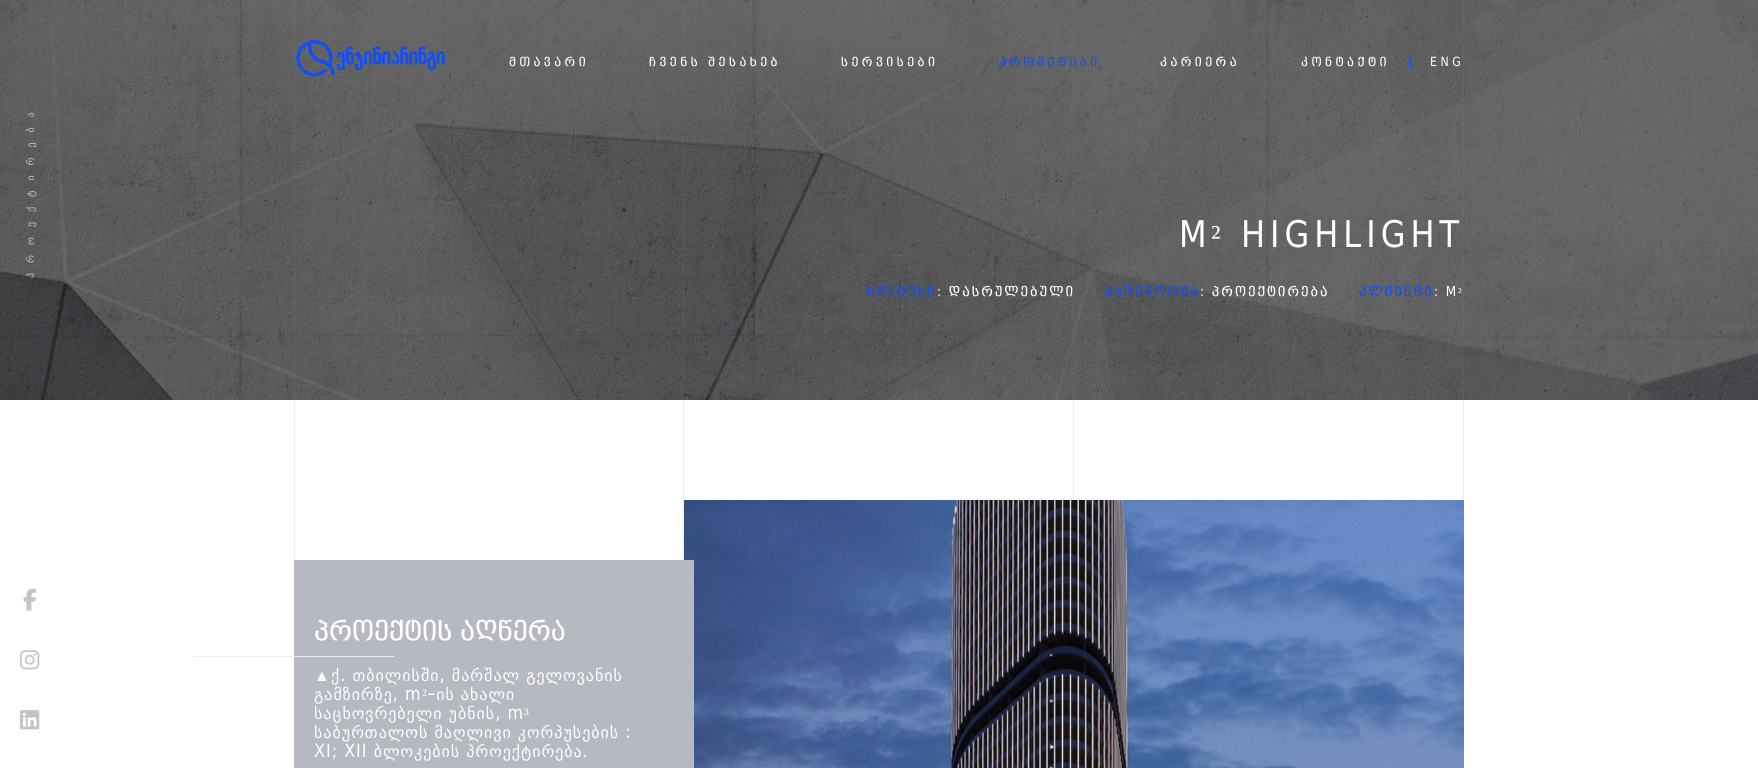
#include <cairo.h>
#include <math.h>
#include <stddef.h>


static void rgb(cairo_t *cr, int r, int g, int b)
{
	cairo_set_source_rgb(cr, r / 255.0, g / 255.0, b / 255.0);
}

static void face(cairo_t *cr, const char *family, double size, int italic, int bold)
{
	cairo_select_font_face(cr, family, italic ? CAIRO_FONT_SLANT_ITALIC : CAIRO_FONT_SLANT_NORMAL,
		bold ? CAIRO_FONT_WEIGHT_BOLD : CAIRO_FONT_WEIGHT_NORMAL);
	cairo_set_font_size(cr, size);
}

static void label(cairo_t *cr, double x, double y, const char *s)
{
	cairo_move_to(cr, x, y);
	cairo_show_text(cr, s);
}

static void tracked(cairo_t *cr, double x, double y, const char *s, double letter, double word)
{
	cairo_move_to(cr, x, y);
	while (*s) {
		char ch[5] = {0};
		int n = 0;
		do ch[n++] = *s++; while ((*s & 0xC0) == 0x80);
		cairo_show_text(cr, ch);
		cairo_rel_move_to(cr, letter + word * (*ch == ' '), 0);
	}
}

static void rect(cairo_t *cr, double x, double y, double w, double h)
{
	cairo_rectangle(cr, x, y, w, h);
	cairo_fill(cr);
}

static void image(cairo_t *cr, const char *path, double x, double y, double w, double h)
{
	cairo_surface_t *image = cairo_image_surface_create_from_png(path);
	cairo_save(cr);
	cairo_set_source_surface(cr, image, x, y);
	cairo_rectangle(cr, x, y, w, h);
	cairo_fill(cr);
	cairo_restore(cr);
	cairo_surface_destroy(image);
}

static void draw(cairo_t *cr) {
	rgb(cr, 255, 255, 255);
	cairo_paint(cr);
	image(cr, "image4.png", 0, 0, 1758, 400);
	cairo_set_source_rgba(cr, 0.533, 0.533, 0.533, 0.15);
	rect(cr, 683, 0, 1, 560);
	rect(cr, 294, 0, 1, 560);
	rect(cr, 1073, 0, 1, 500);
	rect(cr, 1463, 0, 1, 500);
	image(cr, "image0.png", 296, 40, 149, 37);
	face(cr, "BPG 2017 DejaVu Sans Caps", 11, 0, 0);
	rgb(cr, 255, 255, 255);
	tracked(cr, 509, 66, "მთავარი", 3.5, 0);
	tracked(cr, 649, 66, "ჩვენს შესახებ", 3.5, 0);
	tracked(cr, 841, 66, "სერვისები", 3.5, 0);
	rgb(cr, 17, 78, 246);
	tracked(cr, 999, 66, "პროექტები", 3.5, 0);
	rgb(cr, 255, 255, 255);
	tracked(cr, 1160, 66, "კარიერა", 3.5, 0);
	tracked(cr, 1301, 66, "კონტაქტი", 3.5, 0);
	rgb(cr, 17, 78, 246);
	rect(cr, 1410, 56, 1, 13);
	rgb(cr, 255, 255, 255);
	tracked(cr, 1430, 66, "ENG", 3.5, 0);
	face(cr, "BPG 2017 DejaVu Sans", 10, 0, 0);
	rgb(cr, 197, 196, 194);
	cairo_save(cr);
	cairo_translate(cr, 34, 278);
	cairo_rotate(cr, -90 * M_PI / 180);
	tracked(cr, 0, 0, "პროექტირება", 10, 0);
	cairo_restore(cr);
	image(cr, "image1.png", 23, 588, 14, 23);
	image(cr, "image2.png", 20, 650, 20, 20);
	image(cr, "image3.png", 20, 710, 20, 20);
	face(cr, "BPG 2017 DejaVu Sans Caps", 32, 0, 0);
	rgb(cr, 255, 255, 255);
	tracked(cr, 1179, 247, "M", 5, 0);
	face(cr, "Liberation Serif", 32, 0, 0);
	tracked(cr, 1211, 247, "²", 5, 0);
	face(cr, "BPG 2017 DejaVu Sans Caps", 32, 0, 0);
	tracked(cr, 1241, 247, "HIGHLIGHT", 5, 0);
	face(cr, "BPG 2017 DejaVu Sans Caps", 12, 0, 0);
	rgb(cr, 17, 78, 246);
	tracked(cr, 867, 296, "სტატუსი", 2, 0);
	rgb(cr, 255, 255, 255);
	tracked(cr, 937, 296, ": დასრულებული", 2, 0);
	rgb(cr, 17, 78, 246);
	tracked(cr, 1105, 296, "კატეგორია", 2, 0);
	rgb(cr, 255, 255, 255);
	tracked(cr, 1200, 296, ": პროექტირება", 2, 0);
	rgb(cr, 17, 78, 246);
	tracked(cr, 1359, 296, "კლიენტი", 2, 0);
	rgb(cr, 255, 255, 255);
	tracked(cr, 1434, 296, ": M", 2, 0);
	face(cr, "Liberation Serif", 12, 0, 0);
	tracked(cr, 1458, 296, "²", 2, 0);
	image(cr, "image5.png", 684, 500, 780, 268);
	rgb(cr, 182, 185, 193);
	rect(cr, 294, 560, 400, 208);
	face(cr, "BPG 2017 DejaVu Sans Caps", 24, 0, 0);
	rgb(cr, 255, 255, 255);
	label(cr, 314, 640, "პროექტის აღწერა");
	rgb(cr, 237, 237, 237);
	rect(cr, 194, 656, 200, 1);
	face(cr, "Liberation Serif", 16, 0, 0);
	rgb(cr, 255, 255, 255);
	tracked(cr, 314, 681, "▲", 1, 0);
	face(cr, "BPG 2017 DejaVu Sans", 16, 0, 0);
	tracked(cr, 331, 681, "ქ. თბილისში, მარშალ გელოვანის", 1, 0);
	tracked(cr, 314, 700, "გამზირზე, m -ის ახალი", 1, 0);
	face(cr, "Liberation Serif", 16, 0, 0);
	tracked(cr, 422, 700, "²", 1, 0);
	face(cr, "BPG 2017 DejaVu Sans", 16, 0, 0);
	tracked(cr, 314, 719, "საცხოვრებელი უბნის, m", 1, 0);
	face(cr, "Liberation Serif", 16, 0, 0);
	tracked(cr, 524, 719, "³", 1, 0);
	face(cr, "BPG 2017 DejaVu Sans", 16, 0, 0);
	tracked(cr, 314, 738, "საბურთალოს მაღლივი კორპუსების :", 1, 0);
	tracked(cr, 314, 757, "XI; XII ბლოკების პროექტირება.", 1, 0);
}

int main(void) {
	cairo_surface_t *surface = cairo_image_surface_create(CAIRO_FORMAT_RGB24, 1758, 768);
	cairo_t *cr = cairo_create(surface);
	cairo_font_options_t *options = cairo_font_options_create();
	cairo_font_options_set_hint_metrics(options, CAIRO_HINT_METRICS_OFF);
	cairo_font_options_set_hint_style(options, CAIRO_HINT_STYLE_NONE);
	cairo_set_font_options(cr, options);
	cairo_set_miter_limit(cr, 4);
	draw(cr);
	cairo_surface_write_to_png(surface, "render.png");
	cairo_font_options_destroy(options);
	cairo_destroy(cr);
	cairo_surface_destroy(surface);
	return 0;
}
